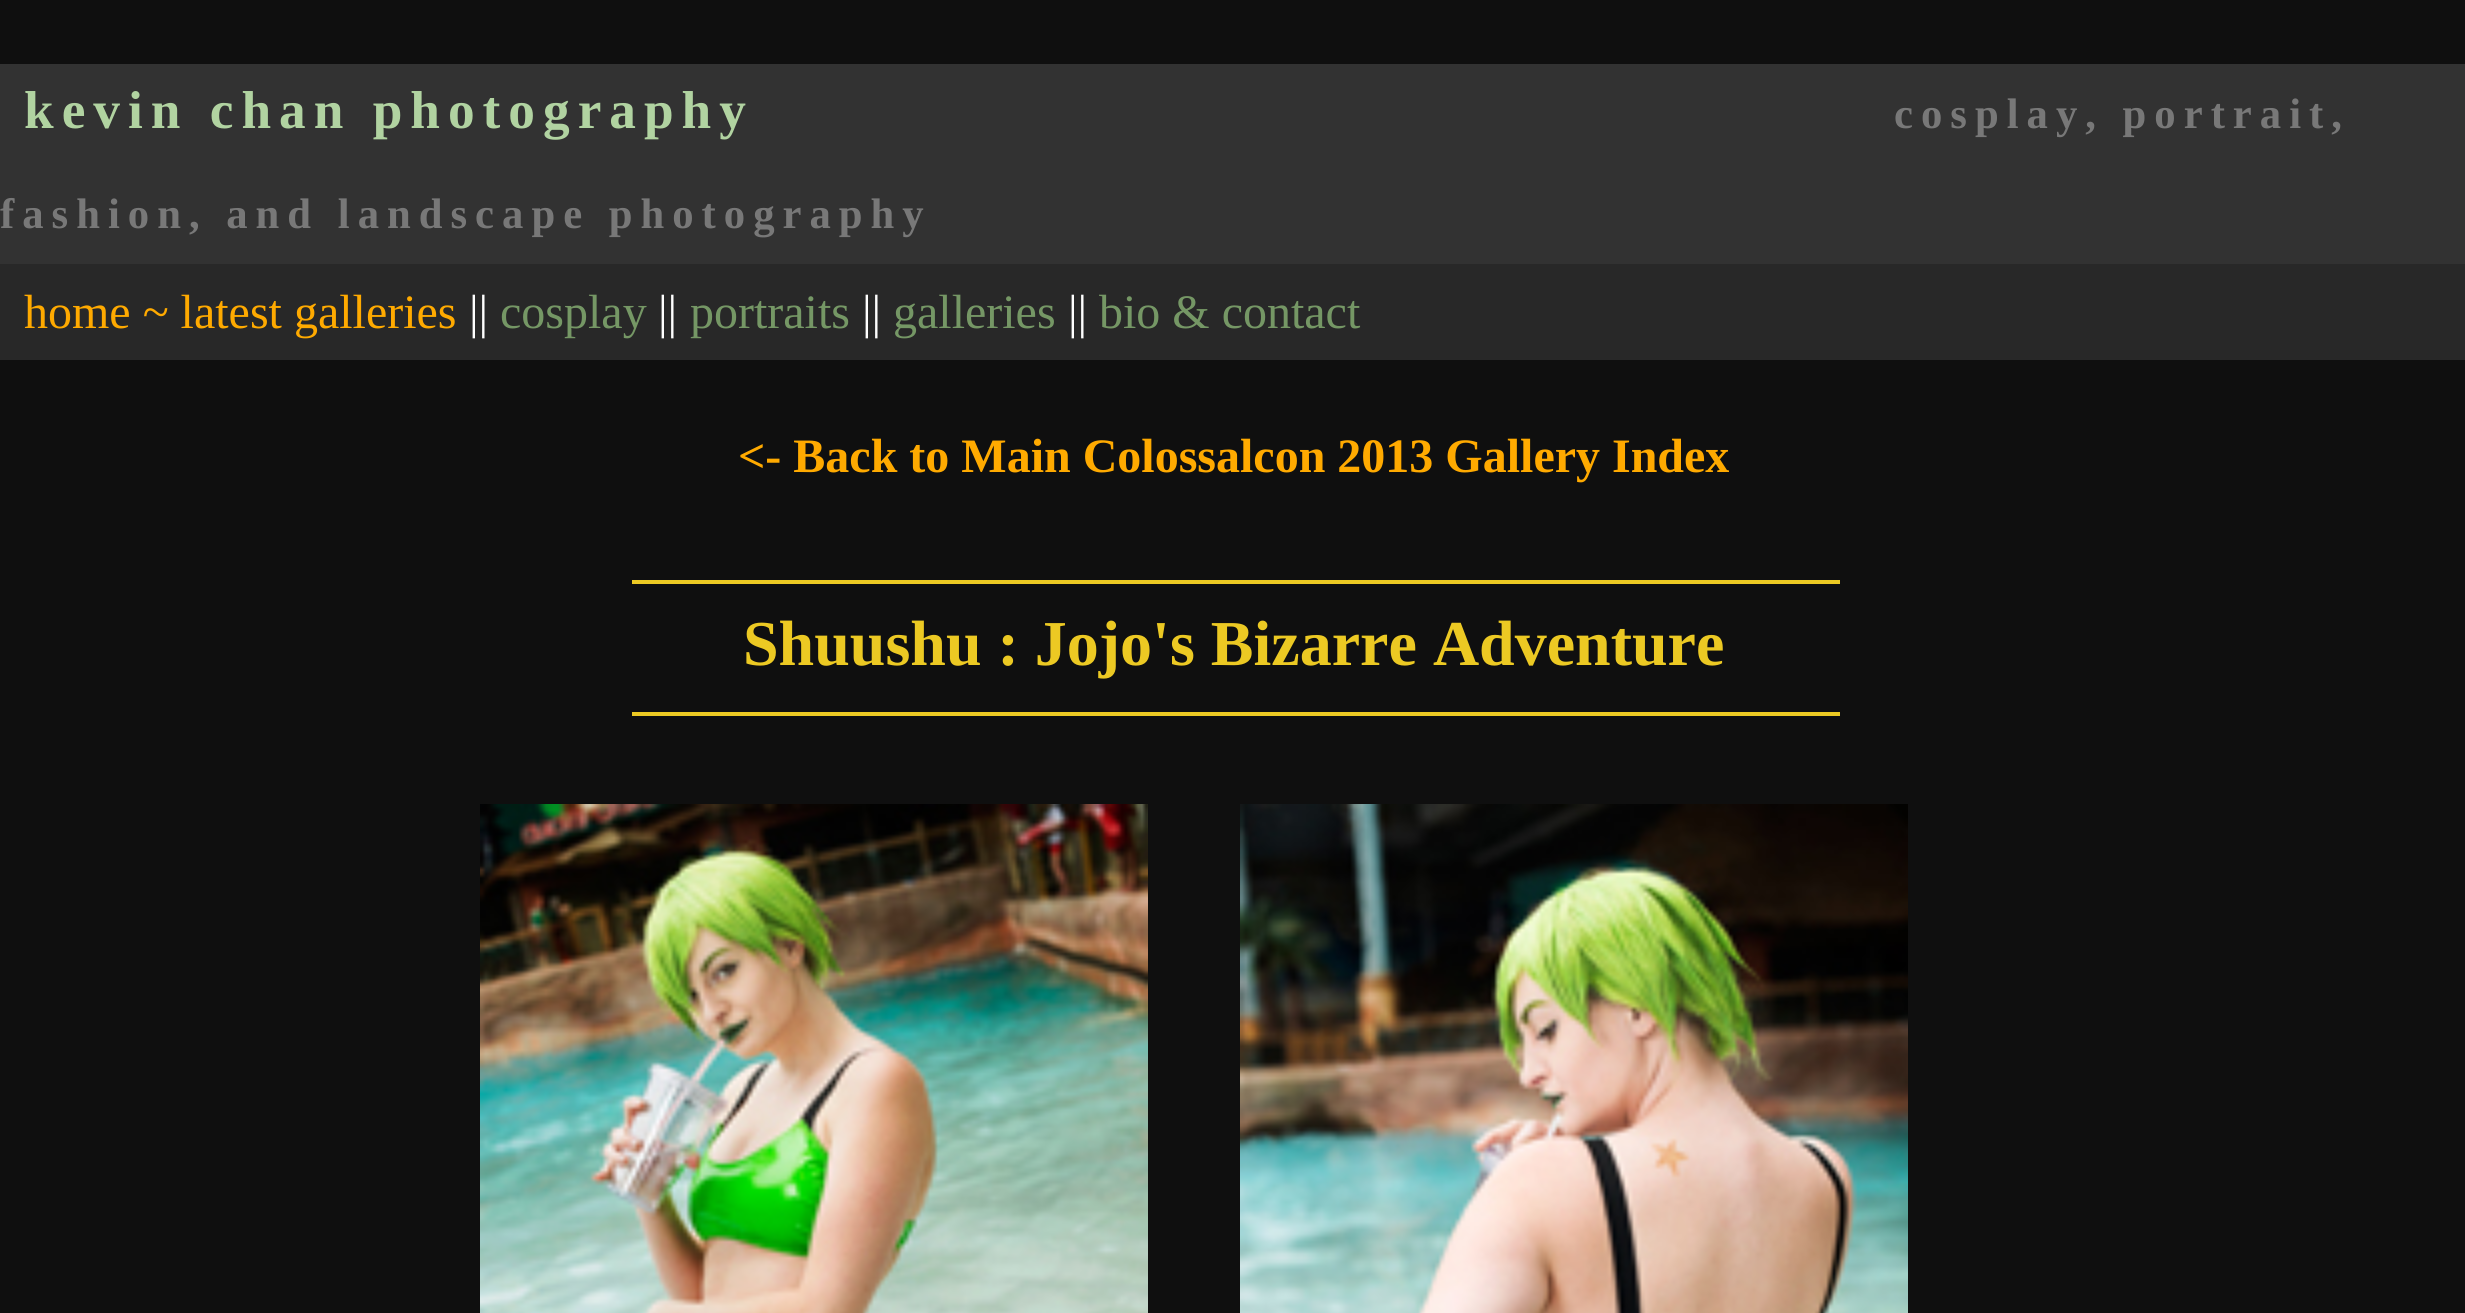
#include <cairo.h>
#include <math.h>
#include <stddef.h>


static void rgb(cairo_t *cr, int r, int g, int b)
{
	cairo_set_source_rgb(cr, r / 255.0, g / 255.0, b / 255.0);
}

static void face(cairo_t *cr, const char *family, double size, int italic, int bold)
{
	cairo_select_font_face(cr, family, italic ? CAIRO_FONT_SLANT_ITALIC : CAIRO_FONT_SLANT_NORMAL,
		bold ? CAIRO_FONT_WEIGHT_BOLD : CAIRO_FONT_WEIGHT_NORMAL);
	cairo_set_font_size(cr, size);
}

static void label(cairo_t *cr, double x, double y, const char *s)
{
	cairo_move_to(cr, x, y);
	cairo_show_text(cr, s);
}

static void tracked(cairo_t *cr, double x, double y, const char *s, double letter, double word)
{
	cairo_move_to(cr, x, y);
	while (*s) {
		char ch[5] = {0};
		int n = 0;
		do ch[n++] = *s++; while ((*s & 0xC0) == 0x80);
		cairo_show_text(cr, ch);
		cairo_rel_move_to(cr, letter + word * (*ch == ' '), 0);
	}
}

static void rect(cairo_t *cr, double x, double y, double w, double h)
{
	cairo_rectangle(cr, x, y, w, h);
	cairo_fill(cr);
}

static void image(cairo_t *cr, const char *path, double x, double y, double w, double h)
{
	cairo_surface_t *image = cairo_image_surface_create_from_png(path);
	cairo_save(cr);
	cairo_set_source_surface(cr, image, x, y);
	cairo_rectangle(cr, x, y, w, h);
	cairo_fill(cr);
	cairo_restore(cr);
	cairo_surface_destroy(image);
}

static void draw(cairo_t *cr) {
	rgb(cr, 15, 15, 15);
	cairo_paint(cr);
	rgb(cr, 50, 50, 50);
	rect(cr, 0, 64, 2465, 200);
	face(cr, "Liberation Serif", 53.3, 0, 1);
	rgb(cr, 177, 211, 161);
	tracked(cr, 24, 128, "kevin chan photography", 8, 0);
	face(cr, "Liberation Serif", 42.7, 0, 1);
	rgb(cr, 120, 120, 120);
	tracked(cr, 1894, 128, "cosplay, portrait,", 8, 0);
	tracked(cr, 0, 228, "fashion, and landscape photography", 8, 0);
	rgb(cr, 40, 40, 40);
	rect(cr, 0, 264, 2465, 96);
	face(cr, "Liberation Serif", 48, 0, 0);
	rgb(cr, 255, 170, 0);
	label(cr, 24, 328, "home ~ latest galleries");
	rgb(cr, 255, 255, 255);
	label(cr, 469, 328, "||");
	rgb(cr, 117, 151, 101);
	label(cr, 500, 328, "cosplay");
	rgb(cr, 255, 255, 255);
	label(cr, 658, 328, "||");
	rgb(cr, 117, 151, 101);
	label(cr, 690, 328, "portraits");
	rgb(cr, 255, 255, 255);
	label(cr, 862, 328, "||");
	rgb(cr, 117, 151, 101);
	label(cr, 893, 328, "galleries");
	rgb(cr, 255, 255, 255);
	label(cr, 1068, 328, "||");
	rgb(cr, 117, 151, 101);
	label(cr, 1099, 328, "bio & contact");
	face(cr, "Liberation Serif", 48, 0, 1);
	rgb(cr, 255, 170, 0);
	label(cr, 738, 472, "<- Back to Main Colossalcon 2013 Gallery Index");
	rgb(cr, 236, 201, 35);
	rect(cr, 632, 580, 1208, 4);
	face(cr, "Liberation Serif", 64, 0, 1);
	label(cr, 743, 665, "Shuushu : Jojo's Bizarre Adventure");
	rect(cr, 632, 712, 1208, 4);
	image(cr, "image0.png", 480, 804, 668, 509);
	image(cr, "image1.png", 1240, 804, 668, 509);
}

int main(void) {
	cairo_surface_t *surface = cairo_image_surface_create(CAIRO_FORMAT_RGB24, 2465, 1313);
	cairo_t *cr = cairo_create(surface);
	cairo_font_options_t *options = cairo_font_options_create();
	cairo_font_options_set_hint_metrics(options, CAIRO_HINT_METRICS_OFF);
	cairo_font_options_set_hint_style(options, CAIRO_HINT_STYLE_NONE);
	cairo_set_font_options(cr, options);
	cairo_set_miter_limit(cr, 4);
	draw(cr);
	cairo_surface_write_to_png(surface, "render.png");
	cairo_font_options_destroy(options);
	cairo_destroy(cr);
	cairo_surface_destroy(surface);
	return 0;
}
